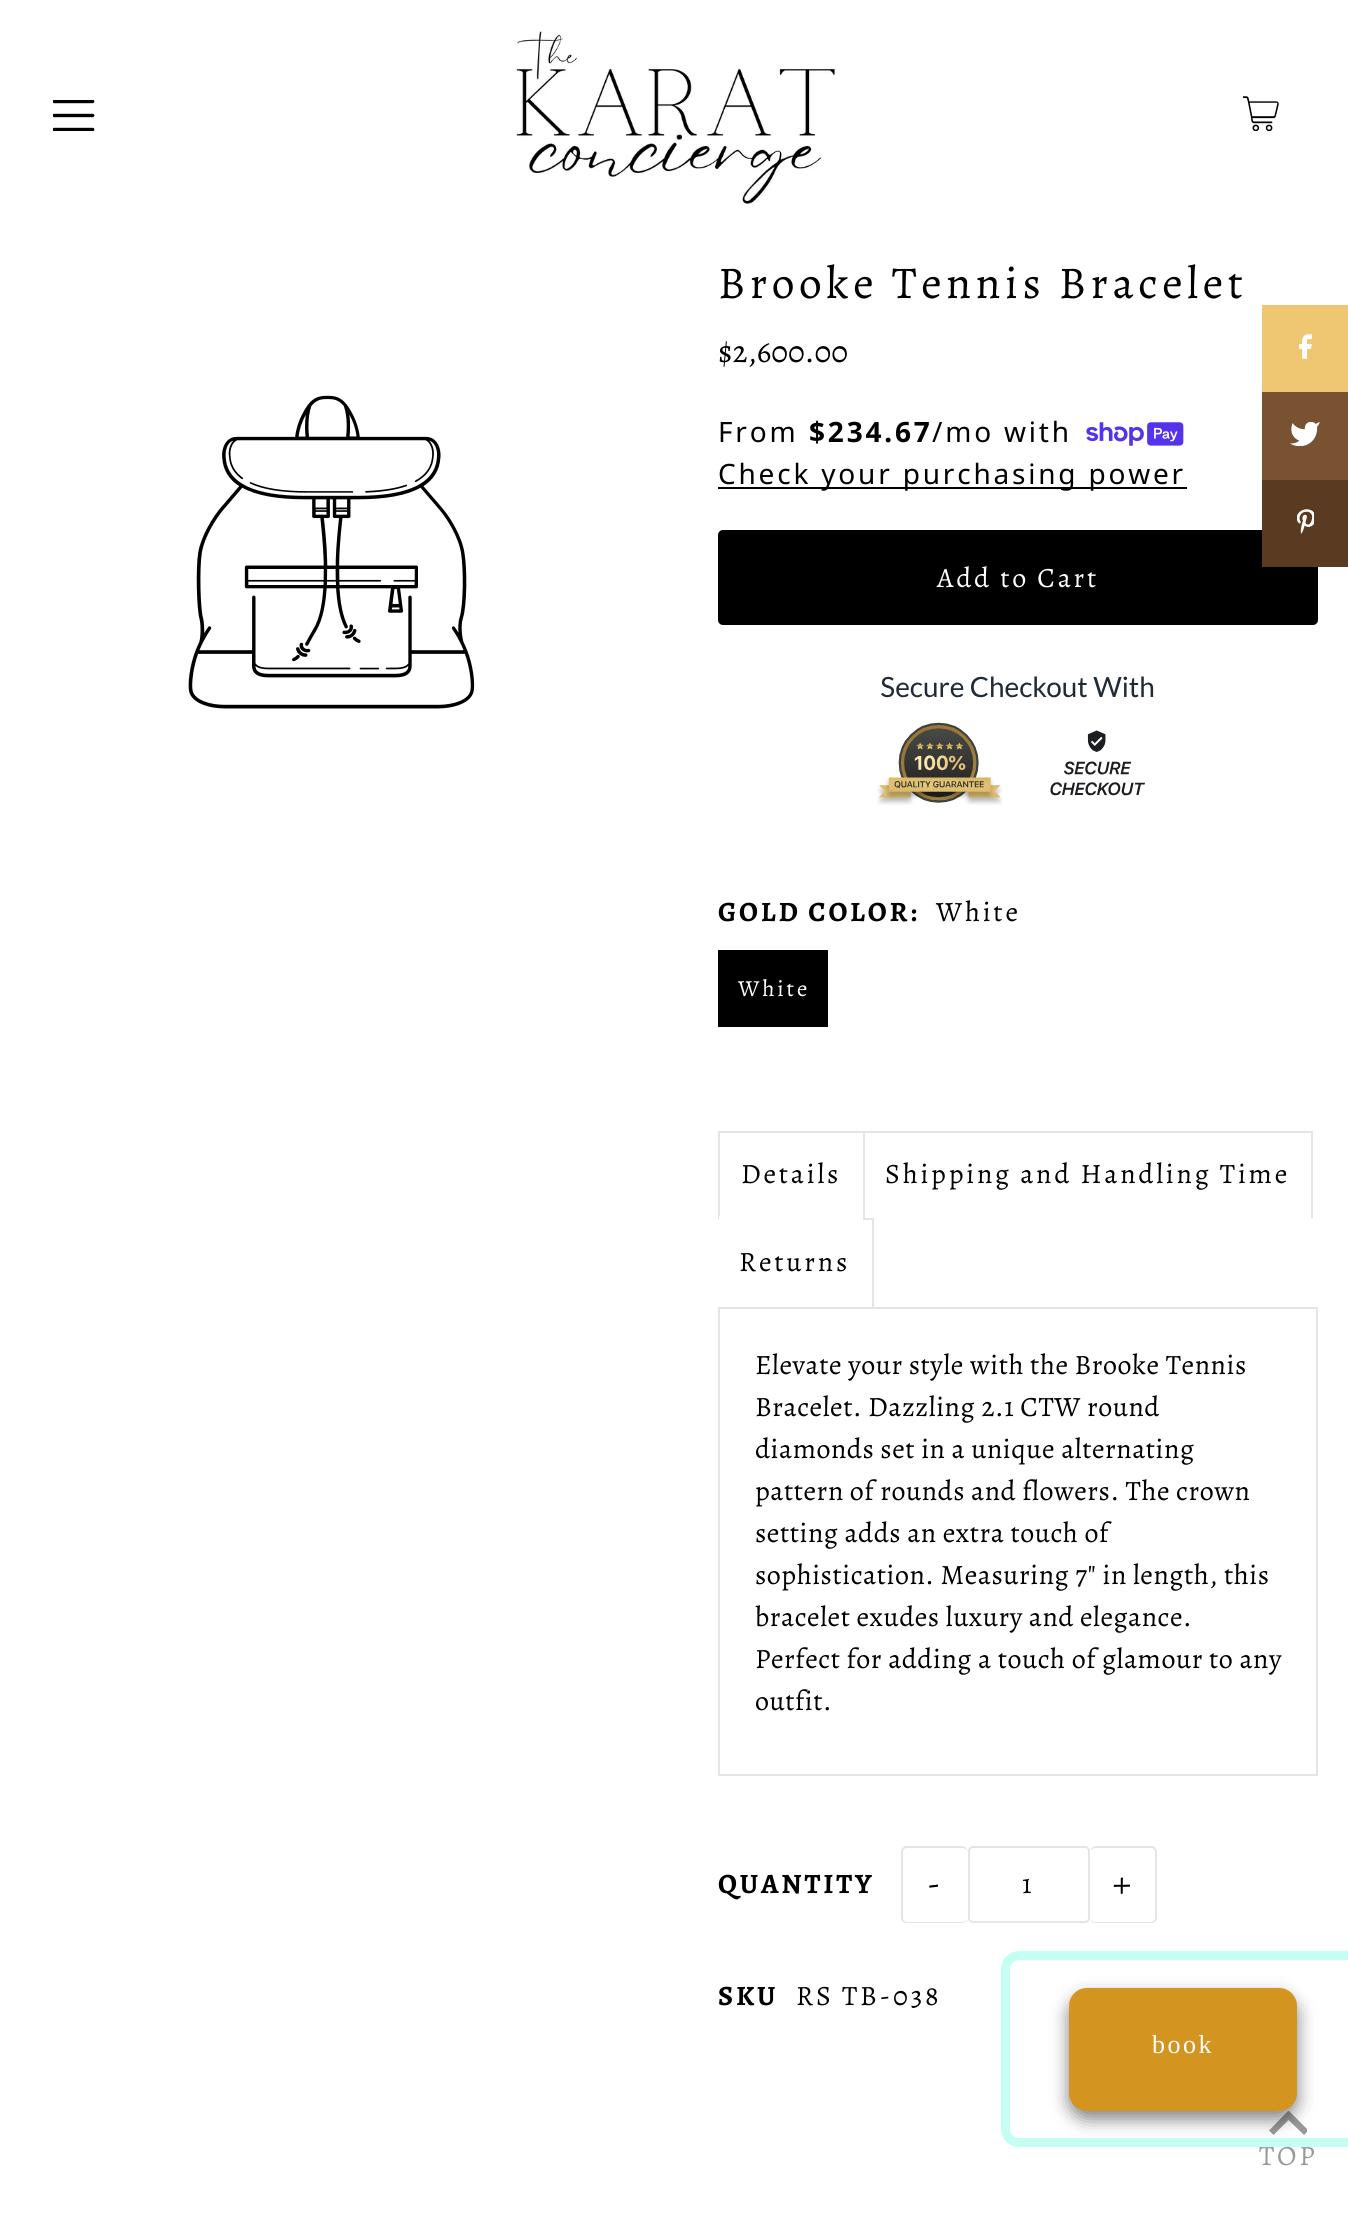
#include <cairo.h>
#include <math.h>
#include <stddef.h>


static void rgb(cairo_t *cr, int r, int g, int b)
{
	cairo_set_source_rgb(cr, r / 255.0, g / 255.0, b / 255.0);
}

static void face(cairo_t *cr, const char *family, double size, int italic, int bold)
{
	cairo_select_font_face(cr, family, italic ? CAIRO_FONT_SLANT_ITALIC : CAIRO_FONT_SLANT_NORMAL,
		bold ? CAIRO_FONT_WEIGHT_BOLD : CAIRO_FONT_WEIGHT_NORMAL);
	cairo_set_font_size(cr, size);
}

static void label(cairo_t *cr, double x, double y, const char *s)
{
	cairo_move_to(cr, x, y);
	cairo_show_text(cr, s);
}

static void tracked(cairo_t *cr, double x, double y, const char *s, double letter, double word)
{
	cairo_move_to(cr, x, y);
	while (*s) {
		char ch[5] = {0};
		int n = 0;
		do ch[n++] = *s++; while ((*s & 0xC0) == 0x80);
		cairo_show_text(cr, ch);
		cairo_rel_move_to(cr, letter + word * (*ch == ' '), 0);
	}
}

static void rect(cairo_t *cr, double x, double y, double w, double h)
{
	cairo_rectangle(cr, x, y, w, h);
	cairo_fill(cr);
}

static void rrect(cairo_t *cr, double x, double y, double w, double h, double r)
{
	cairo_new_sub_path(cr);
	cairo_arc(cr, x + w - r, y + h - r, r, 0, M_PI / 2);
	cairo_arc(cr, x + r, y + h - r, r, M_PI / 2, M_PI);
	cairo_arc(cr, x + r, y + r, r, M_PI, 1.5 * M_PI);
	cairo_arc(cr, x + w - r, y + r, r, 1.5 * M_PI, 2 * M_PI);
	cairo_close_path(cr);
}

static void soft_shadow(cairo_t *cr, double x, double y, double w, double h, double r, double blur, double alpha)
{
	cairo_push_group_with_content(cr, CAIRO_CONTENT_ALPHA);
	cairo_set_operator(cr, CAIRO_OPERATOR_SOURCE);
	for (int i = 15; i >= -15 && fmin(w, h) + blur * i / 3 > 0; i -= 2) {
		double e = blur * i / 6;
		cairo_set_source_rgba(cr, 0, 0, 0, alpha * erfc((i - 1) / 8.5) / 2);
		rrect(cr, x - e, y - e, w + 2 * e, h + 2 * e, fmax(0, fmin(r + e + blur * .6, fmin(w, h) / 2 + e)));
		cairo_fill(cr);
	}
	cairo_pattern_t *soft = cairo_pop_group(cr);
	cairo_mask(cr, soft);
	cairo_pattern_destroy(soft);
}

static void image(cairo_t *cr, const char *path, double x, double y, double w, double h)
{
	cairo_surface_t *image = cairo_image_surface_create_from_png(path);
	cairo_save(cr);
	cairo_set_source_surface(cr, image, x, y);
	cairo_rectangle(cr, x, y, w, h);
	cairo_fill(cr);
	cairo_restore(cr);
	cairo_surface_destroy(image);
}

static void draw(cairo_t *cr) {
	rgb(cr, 255, 255, 255);
	cairo_paint(cr);
	image(cr, "image0.png", 53, 100, 42, 31);
	image(cr, "image1.png", 516, 31, 319, 174);
	image(cr, "image2.png", 1243, 96, 36, 35);
	image(cr, "image3.png", 188, 395, 287, 314);
	face(cr, "Alegreya", 45.5, 0, 0);
	rgb(cr, 0, 0, 0);
	tracked(cr, 718, 298, "Brooke Tennis Bracelet", 4.55, 0);
	face(cr, "Alegreya", 31.5, 0, 0);
	label(cr, 718, 362, "$2,600.00");
	face(cr, "Noto Sans", 28, 0, 0);
	tracked(cr, 718, 442, "From", 2.8, 0);
	face(cr, "Noto Sans", 28, 0, 1);
	tracked(cr, 809, 442, "$234.67", 2.8, 0);
	face(cr, "Noto Sans", 28, 0, 0);
	tracked(cr, 932, 442, "/mo with", 2.8, 0);
	image(cr, "image4.png", 1086, 422, 98, 24);
	rect(cr, 718, 487, 469, 2);
	tracked(cr, 718, 484, "Check your purchasing power", 2.8, 0);
	rrect(cr, 718, 530, 600, 95, 5);
	cairo_fill(cr);
	face(cr, "Alegreya", 28, 0, 0);
	rgb(cr, 255, 255, 255);
	tracked(cr, 937, 587, "Add to Cart", 2.8, 0);
	image(cr, "image5.png", 877, 676, 277, 129);
	face(cr, "Alegreya", 28, 0, 1);
	rgb(cr, 0, 0, 0);
	tracked(cr, 718, 921, "GOLD COLOR:", 2.8, 0);
	face(cr, "Alegreya", 28, 0, 0);
	tracked(cr, 936, 921, "White", 2.8, 0);
	rect(cr, 718, 950, 110, 77);
	face(cr, "Alegreya", 23, 0, 0);
	rgb(cr, 255, 255, 255);
	tracked(cr, 738, 996, "White", 2.8, 0);
	rgb(cr, 229, 229, 229);
	rect(cr, 718, 1131, 595, 2);
	rect(cr, 863, 1131, 2, 87);
	rect(cr, 718, 1131, 2, 87);
	face(cr, "Alegreya", 28, 0, 0);
	rgb(cr, 0, 0, 0);
	tracked(cr, 741, 1183, "Details", 2.8, 0);
	rgb(cr, 229, 229, 229);
	rect(cr, 718, 1218, 155, 2);
	rgb(cr, 255, 255, 255);
	rect(cr, 719, 1216, 144, 4);
	rgb(cr, 229, 229, 229);
	rect(cr, 1311, 1131, 2, 87);
	rgb(cr, 0, 0, 0);
	tracked(cr, 885, 1183, "Shipping and Handling Time", 2.8, 0);
	rgb(cr, 229, 229, 229);
	rect(cr, 872, 1218, 2, 89);
	rgb(cr, 0, 0, 0);
	tracked(cr, 739, 1271, "Returns", 2.8, 0);
	cairo_rectangle(cr, 719, 1308, 598, 467);
	rgb(cr, 229, 229, 229);
	cairo_stroke(cr);
	rgb(cr, 0, 0, 0);
	tracked(cr, 755, 1374, "Elevate your style with the Brooke Tennis", 0.55, 0);
	tracked(cr, 755, 1416, "Bracelet. Dazzling 2.1 CTW round", 0.55, 0);
	tracked(cr, 755, 1458, "diamonds set in a unique alternating", 0.55, 0);
	tracked(cr, 755, 1500, "pattern of rounds and flowers. The crown", 0.55, 0);
	tracked(cr, 755, 1542, "setting adds an extra touch of", 0.55, 0);
	tracked(cr, 755, 1584, "sophistication. Measuring 7\" in length, this", 0.55, 0);
	tracked(cr, 755, 1626, "bracelet exudes luxury and elegance.", 0.55, 0);
	tracked(cr, 755, 1668, "Perfect for adding a touch of glamour to any", 0.55, 0);
	tracked(cr, 755, 1710, "outfit.", 0.55, 0);
	face(cr, "Alegreya", 28, 0, 1);
	tracked(cr, 718, 1893, "QUANTITY", 2.8, 0);
	rgb(cr, 229, 229, 229);
	cairo_set_fill_rule(cr, CAIRO_FILL_RULE_EVEN_ODD);
	cairo_new_path(cr);
	cairo_move_to(cr, 906, 1846);
	cairo_line_to(cr, 962, 1846);
	cairo_curve_to(cr, 965, 1846, 968, 1849, 968, 1852);
	cairo_line_to(cr, 968, 1918);
	cairo_curve_to(cr, 968, 1921, 965, 1923, 962, 1923);
	cairo_line_to(cr, 906, 1923);
	cairo_curve_to(cr, 904, 1923, 901, 1921, 901, 1918);
	cairo_line_to(cr, 901, 1852);
	cairo_curve_to(cr, 901, 1849, 904, 1846, 906, 1846);
	cairo_close_path(cr);
	cairo_move_to(cr, 906, 1848);
	cairo_line_to(cr, 962, 1848);
	cairo_curve_to(cr, 965, 1848, 968, 1850, 968, 1852);
	cairo_line_to(cr, 968, 1918);
	cairo_curve_to(cr, 968, 1920, 965, 1922, 962, 1922);
	cairo_line_to(cr, 906, 1922);
	cairo_curve_to(cr, 905, 1922, 903, 1920, 903, 1918);
	cairo_line_to(cr, 903, 1852);
	cairo_curve_to(cr, 903, 1850, 905, 1848, 906, 1848);
	cairo_close_path(cr);
	cairo_fill(cr);
	face(cr, "Alegreya", 35, 0, 0);
	rgb(cr, 0, 0, 0);
	tracked(cr, 927, 1895, "-", 4, 0);
	rrect(cr, 969, 1847, 120, 75, 4);
	rgb(cr, 229, 229, 229);
	cairo_stroke(cr);
	face(cr, "Alegreya", 28, 0, 0);
	rgb(cr, 0, 0, 0);
	tracked(cr, 1022, 1893, "1", 2.8, 0);
	rgb(cr, 229, 229, 229);
	cairo_new_path(cr);
	cairo_move_to(cr, 1096, 1846);
	cairo_line_to(cr, 1152, 1846);
	cairo_curve_to(cr, 1154, 1846, 1157, 1849, 1157, 1852);
	cairo_line_to(cr, 1157, 1918);
	cairo_curve_to(cr, 1157, 1921, 1154, 1923, 1152, 1923);
	cairo_line_to(cr, 1096, 1923);
	cairo_curve_to(cr, 1093, 1923, 1090, 1921, 1090, 1918);
	cairo_line_to(cr, 1090, 1852);
	cairo_curve_to(cr, 1090, 1849, 1093, 1846, 1096, 1846);
	cairo_close_path(cr);
	cairo_move_to(cr, 1096, 1848);
	cairo_line_to(cr, 1152, 1848);
	cairo_curve_to(cr, 1153, 1848, 1155, 1850, 1155, 1852);
	cairo_line_to(cr, 1155, 1918);
	cairo_curve_to(cr, 1155, 1920, 1153, 1922, 1152, 1922);
	cairo_line_to(cr, 1096, 1922);
	cairo_curve_to(cr, 1093, 1922, 1090, 1920, 1090, 1918);
	cairo_line_to(cr, 1090, 1852);
	cairo_curve_to(cr, 1090, 1850, 1093, 1848, 1096, 1848);
	cairo_close_path(cr);
	cairo_fill(cr);
	face(cr, "Alegreya", 35, 0, 0);
	rgb(cr, 0, 0, 0);
	tracked(cr, 1113, 1895, "+", 4, 0);
	face(cr, "Alegreya", 28, 0, 1);
	tracked(cr, 718, 2005, "SKU", 2.8, 0);
	face(cr, "Alegreya", 28, 0, 0);
	tracked(cr, 796, 2005, "RS TB-038", 2.8, 0);
	rgb(cr, 239, 198, 113);
	rect(cr, 1262, 305, 86, 87);
	image(cr, "image6.png", 1299, 334, 13, 25);
	rgb(cr, 121, 82, 50);
	rect(cr, 1262, 392, 86, 88);
	image(cr, "image7.png", 1290, 422, 30, 24);
	rgb(cr, 90, 59, 33);
	rect(cr, 1262, 480, 86, 87);
	image(cr, "image8.png", 1297, 509, 17, 25);
	cairo_save(cr);
	cairo_set_fill_rule(cr, CAIRO_FILL_RULE_WINDING);
	cairo_rectangle(cr, 1269, 2111, 38, 24);
	cairo_clip(cr);
	rgb(cr, 153, 153, 153);
	cairo_new_path(cr);
	cairo_move_to(cr, 1288.5, 2110.5);
	cairo_line_to(cr, 1269, 2130.5);
	cairo_line_to(cr, 1273.5, 2135);
	cairo_line_to(cr, 1288.5, 2120);
	cairo_line_to(cr, 1304, 2135);
	cairo_line_to(cr, 1308.5, 2130.5);
	cairo_close_path(cr);
	cairo_fill(cr);
	cairo_restore(cr);
	rgb(cr, 0, 0, 0);
	soft_shadow(cr, 1069, 1997, 228, 122, 18, 9, 0.5);
	rgb(cr, 211, 149, 31);
	rrect(cr, 1069, 1988, 228, 123, 18);
	cairo_fill(cr);
	rgb(cr, 153, 153, 153);
	tracked(cr, 1259, 2165, "TOP", 2.8, 0);
	rrect(cr, 1005.5, 1955.5, 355, 187, 13.5);
	cairo_set_source_rgba(cr, 0.416, 1, 0.878, 0.4);
	cairo_set_line_width(cr, 9);
	cairo_stroke(cr);
	face(cr, "Liberation Serif", 26, 0, 0);
	rgb(cr, 255, 255, 255);
	tracked(cr, 1152, 2053, "book", 2.5, 0);
}

int main(void) {
	cairo_surface_t *surface = cairo_image_surface_create(CAIRO_FORMAT_RGB24, 1348, 2214);
	cairo_t *cr = cairo_create(surface);
	cairo_font_options_t *options = cairo_font_options_create();
	cairo_font_options_set_hint_metrics(options, CAIRO_HINT_METRICS_OFF);
	cairo_font_options_set_hint_style(options, CAIRO_HINT_STYLE_NONE);
	cairo_set_font_options(cr, options);
	cairo_set_miter_limit(cr, 4);
	draw(cr);
	cairo_surface_write_to_png(surface, "render.png");
	cairo_font_options_destroy(options);
	cairo_destroy(cr);
	cairo_surface_destroy(surface);
	return 0;
}
